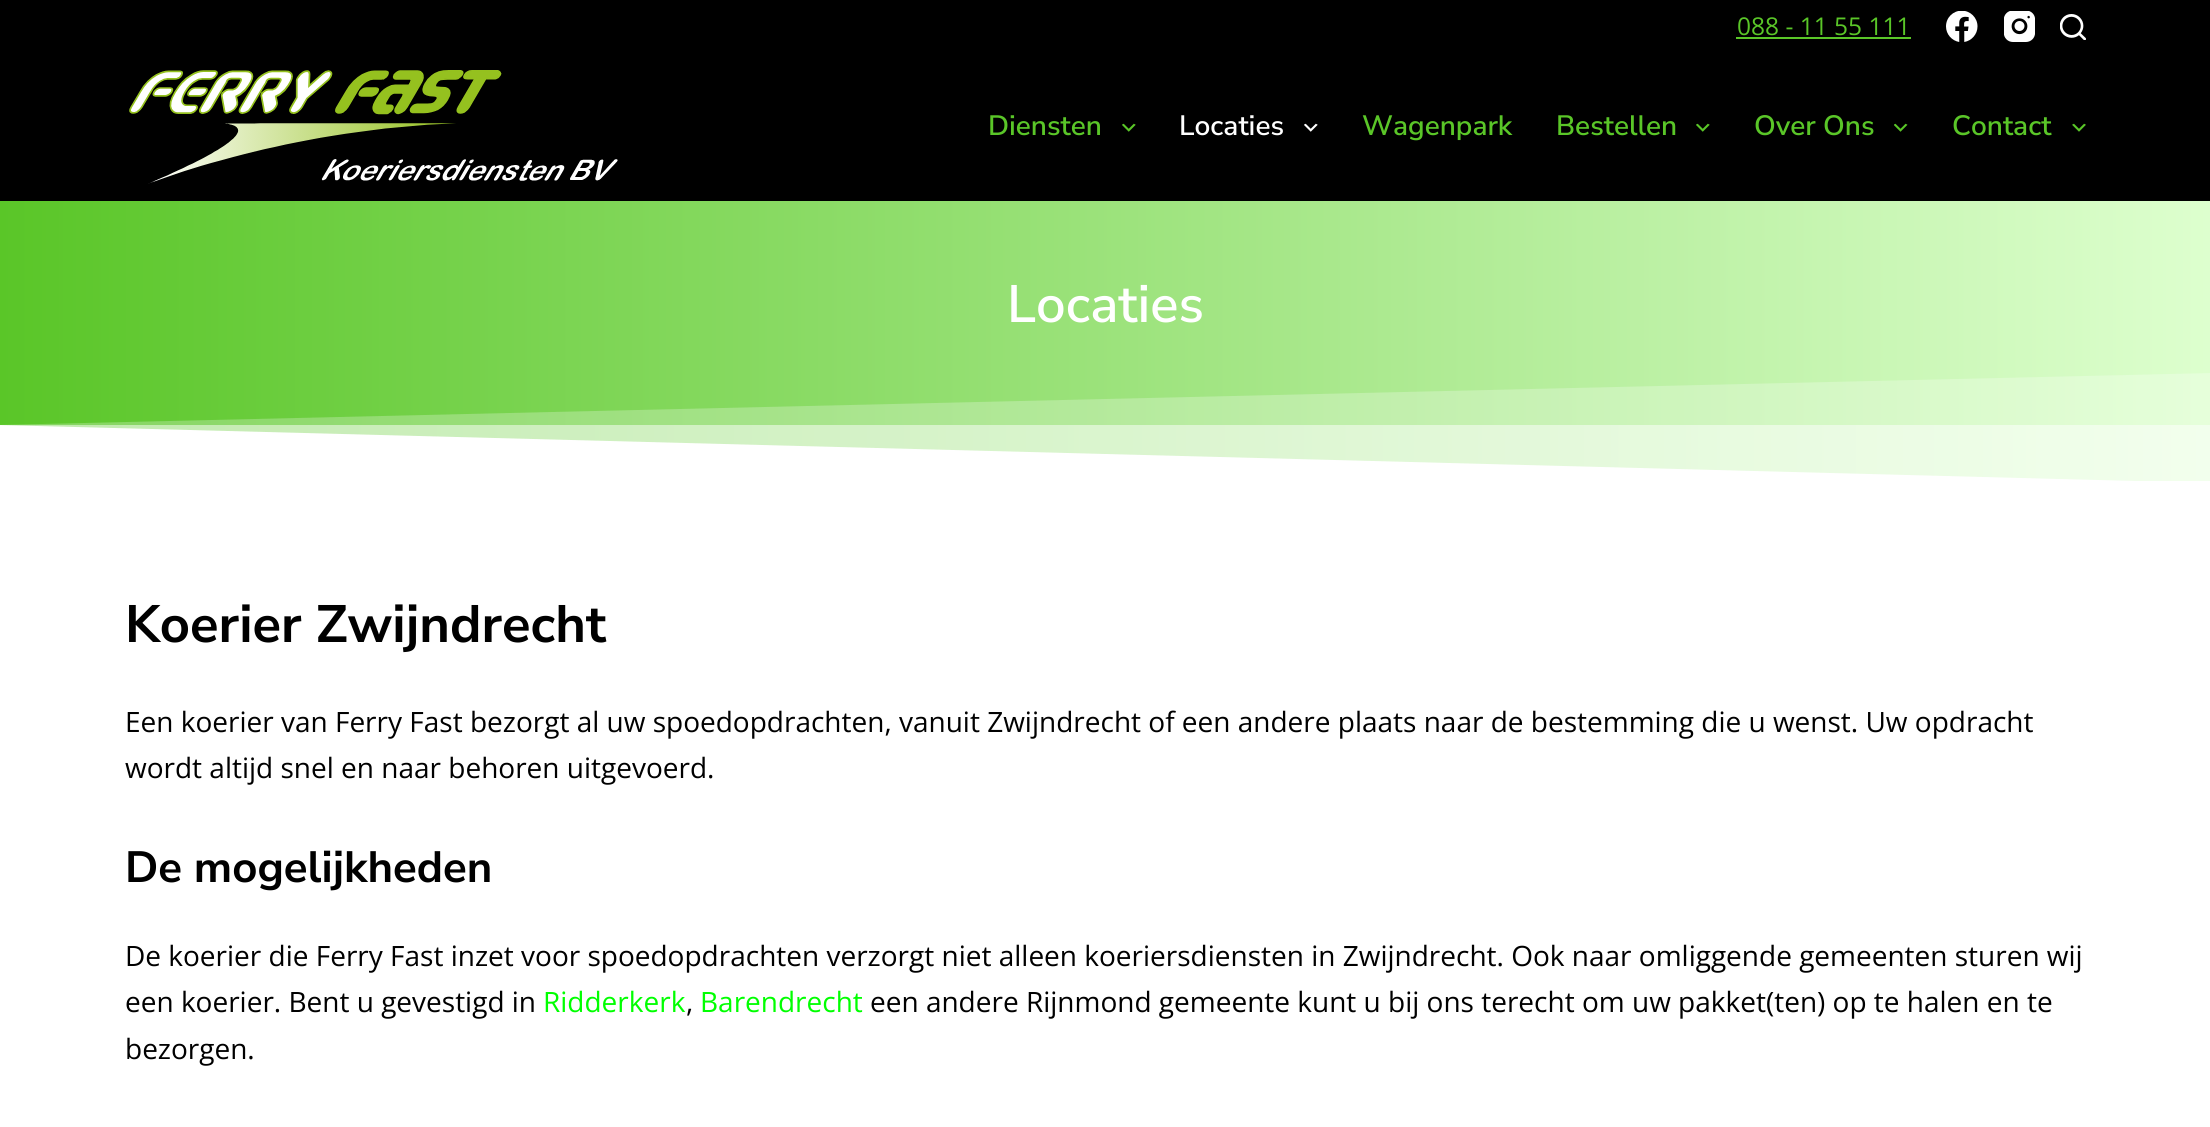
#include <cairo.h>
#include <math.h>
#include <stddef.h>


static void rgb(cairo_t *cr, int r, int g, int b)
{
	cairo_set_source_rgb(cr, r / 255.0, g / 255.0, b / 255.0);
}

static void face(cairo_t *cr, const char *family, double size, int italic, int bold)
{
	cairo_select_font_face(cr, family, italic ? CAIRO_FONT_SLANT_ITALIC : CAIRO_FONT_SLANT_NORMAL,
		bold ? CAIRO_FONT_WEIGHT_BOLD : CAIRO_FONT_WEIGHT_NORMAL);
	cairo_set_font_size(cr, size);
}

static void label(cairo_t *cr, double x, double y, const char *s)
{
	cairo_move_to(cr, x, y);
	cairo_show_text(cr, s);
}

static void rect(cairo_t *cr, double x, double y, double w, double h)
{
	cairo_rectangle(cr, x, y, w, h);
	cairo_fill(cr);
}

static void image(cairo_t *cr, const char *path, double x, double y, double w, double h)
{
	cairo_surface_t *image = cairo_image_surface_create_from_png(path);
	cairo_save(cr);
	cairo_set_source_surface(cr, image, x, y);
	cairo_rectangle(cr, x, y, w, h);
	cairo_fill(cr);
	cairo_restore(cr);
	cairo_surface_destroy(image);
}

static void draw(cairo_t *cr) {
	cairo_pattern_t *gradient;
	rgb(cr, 255, 255, 255);
	cairo_paint(cr);
	rgb(cr, 0, 0, 0);
	rect(cr, 0, 0, 2210, 201);
	face(cr, "Open Sans", 24.5, 0, 0);
	rgb(cr, 90, 198, 40);
	label(cr, 1737, 35, "088 - 11 55 111");
	rect(cr, 1736, 37, 175, 2);
	image(cr, "image0.png", 1946, 11, 32, 31);
	image(cr, "image1.png", 2004, 11, 31, 31);
	image(cr, "image2.png", 2060, 14, 26, 26);
	image(cr, "image3.png", 129, 70, 489, 114);
	face(cr, "Nunito Sans SemiBold", 28, 0, 0);
	label(cr, 988, 135, "Diensten");
	image(cr, "image4.png", 1122, 123, 14, 9);
	rgb(cr, 255, 255, 255);
	label(cr, 1179, 135, "Locaties");
	image(cr, "image5.png", 1304, 123, 14, 9);
	rgb(cr, 90, 198, 40);
	label(cr, 1362, 135, "Wagenpark");
	label(cr, 1556, 135, "Bestellen");
	image(cr, "image4.png", 1696, 123, 14, 9);
	label(cr, 1754, 135, "Over Ons");
	image(cr, "image6.png", 1894, 123, 14, 9);
	label(cr, 1952, 135, "Contact");
	image(cr, "image7.png", 2072, 123, 14, 9);
	gradient = cairo_pattern_create_linear(0, 289, 2210, 289);
	cairo_pattern_add_color_stop_rgba(gradient, 0, 0.353, 0.776, 0.157, 1);
	cairo_pattern_add_color_stop_rgba(gradient, 1, 0.867, 1, 0.808, 1);
	cairo_set_source(cr, gradient);
	cairo_pattern_destroy(gradient);
	rect(cr, 0, 201, 2210, 224);
	gradient = cairo_pattern_create_linear(0, 289, 2210, 289);
	cairo_pattern_add_color_stop_rgba(gradient, 0, 0.678, 0.89, 0.58, 1);
	cairo_pattern_add_color_stop_rgba(gradient, 1, 0.933, 1, 0.906, 1);
	cairo_set_source(cr, gradient);
	cairo_pattern_destroy(gradient);
	rect(cr, 0, 425, 2210, 56);
	face(cr, "Nunito Sans SemiBold", 52.5, 0, 0);
	rgb(cr, 255, 255, 255);
	label(cr, 1007, 322, "Locaties");
	cairo_new_path(cr);
	cairo_move_to(cr, 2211, 483);
	cairo_line_to(cr, -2, 483);
	cairo_line_to(cr, -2, 425);
	cairo_close_path(cr);
	cairo_fill(cr);
	cairo_set_source_rgba(cr, 1, 1, 1, 0.25);
	cairo_new_path(cr);
	cairo_move_to(cr, -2, 483);
	cairo_line_to(cr, 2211, 483);
	cairo_line_to(cr, 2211, 373);
	cairo_line_to(cr, -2, 425);
	cairo_close_path(cr);
	cairo_fill(cr);
	face(cr, "Nunito Sans", 52.5, 0, 1);
	rgb(cr, 0, 0, 0);
	label(cr, 125, 642, "Koerier Zwijndrecht");
	face(cr, "Open Sans", 28, 0, 0);
	label(cr, 125, 732, "Een koerier van Ferry Fast bezorgt al uw spoedopdrachten, vanuit Zwijndrecht of een andere plaats naar de bestemming die u wenst. Uw opdracht");
	label(cr, 125, 778, "wordt altijd snel en naar behoren uitgevoerd.");
	face(cr, "Nunito Sans", 43.75, 0, 1);
	label(cr, 125, 882, "De mogelijkheden");
	face(cr, "Open Sans", 28, 0, 0);
	label(cr, 125, 966, "De koerier die Ferry Fast inzet voor spoedopdrachten verzorgt niet alleen koeriersdiensten in Zwijndrecht. Ook naar omliggende gemeenten sturen wij");
	label(cr, 125, 1012, "een koerier. Bent u gevestigd in");
	rgb(cr, 0, 255, 0);
	label(cr, 543, 1012, "Ridderkerk");
	rgb(cr, 0, 0, 0);
	label(cr, 686, 1012, ",");
	rgb(cr, 0, 255, 0);
	label(cr, 700, 1012, "Barendrecht");
	rgb(cr, 0, 0, 0);
	label(cr, 870, 1012, "een andere Rijnmond gemeente kunt u bij ons terecht om uw pakket(ten) op te halen en te");
	label(cr, 125, 1059, "bezorgen.");
}

int main(void) {
	cairo_surface_t *surface = cairo_image_surface_create(CAIRO_FORMAT_RGB24, 2210, 1127);
	cairo_t *cr = cairo_create(surface);
	cairo_font_options_t *options = cairo_font_options_create();
	cairo_font_options_set_hint_metrics(options, CAIRO_HINT_METRICS_OFF);
	cairo_font_options_set_hint_style(options, CAIRO_HINT_STYLE_NONE);
	cairo_set_font_options(cr, options);
	cairo_set_miter_limit(cr, 4);
	draw(cr);
	cairo_surface_write_to_png(surface, "render.png");
	cairo_font_options_destroy(options);
	cairo_destroy(cr);
	cairo_surface_destroy(surface);
	return 0;
}
